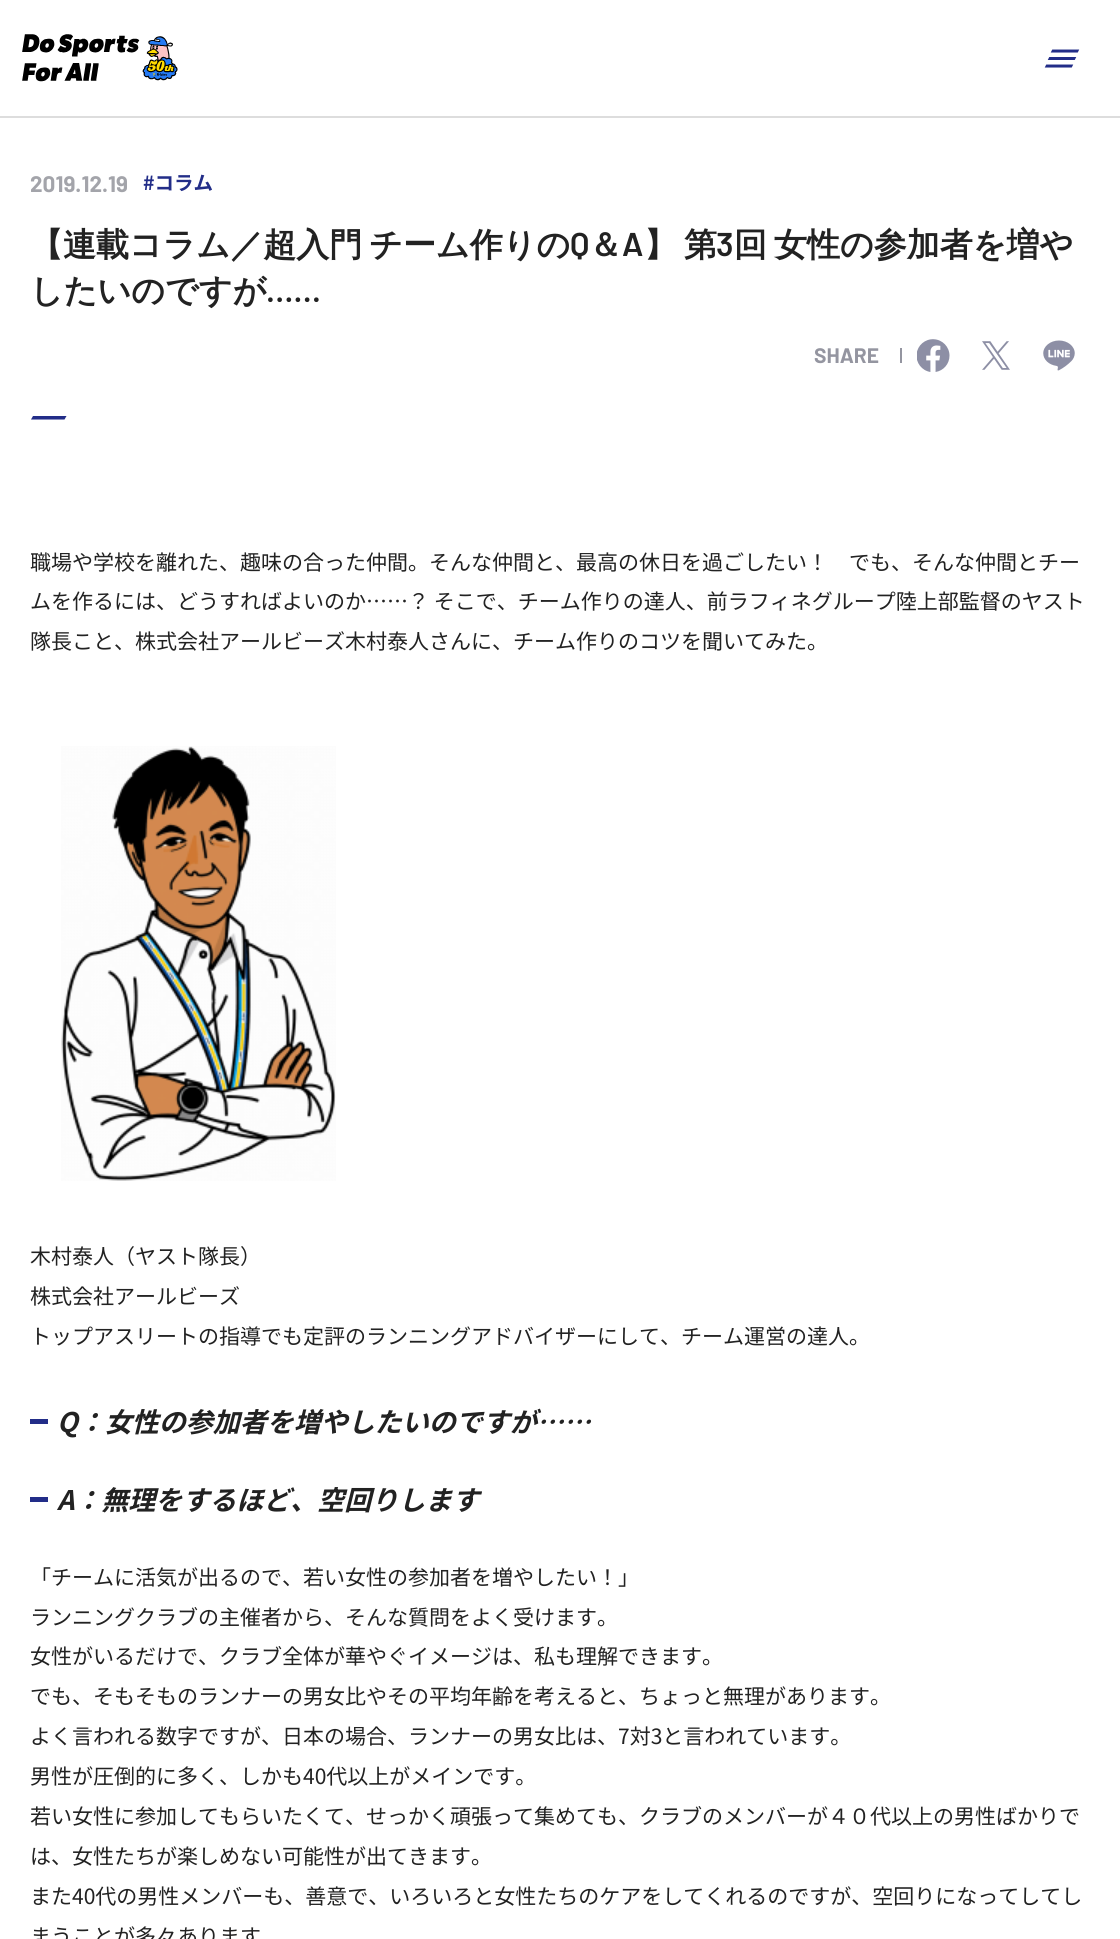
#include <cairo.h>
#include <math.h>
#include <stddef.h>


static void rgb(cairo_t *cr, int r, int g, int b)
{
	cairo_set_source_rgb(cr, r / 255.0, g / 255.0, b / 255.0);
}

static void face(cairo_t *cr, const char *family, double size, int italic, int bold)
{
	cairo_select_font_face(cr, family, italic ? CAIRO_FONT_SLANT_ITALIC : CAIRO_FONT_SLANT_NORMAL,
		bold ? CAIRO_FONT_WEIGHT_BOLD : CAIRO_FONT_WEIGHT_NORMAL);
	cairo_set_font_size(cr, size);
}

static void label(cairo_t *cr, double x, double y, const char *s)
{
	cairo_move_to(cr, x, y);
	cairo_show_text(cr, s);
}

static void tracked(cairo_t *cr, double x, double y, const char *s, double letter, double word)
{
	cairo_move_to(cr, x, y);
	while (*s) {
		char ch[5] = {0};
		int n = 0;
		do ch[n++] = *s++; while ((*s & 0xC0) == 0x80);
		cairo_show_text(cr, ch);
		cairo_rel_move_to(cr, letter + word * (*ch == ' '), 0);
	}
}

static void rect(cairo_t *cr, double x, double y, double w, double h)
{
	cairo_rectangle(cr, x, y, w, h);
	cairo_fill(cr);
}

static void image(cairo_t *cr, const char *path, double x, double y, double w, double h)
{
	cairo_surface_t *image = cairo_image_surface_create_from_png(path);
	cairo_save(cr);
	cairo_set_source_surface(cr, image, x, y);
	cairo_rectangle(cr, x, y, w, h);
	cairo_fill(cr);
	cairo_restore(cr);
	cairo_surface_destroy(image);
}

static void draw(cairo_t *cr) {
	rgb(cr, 255, 255, 255);
	cairo_paint(cr);
	rgb(cr, 221, 221, 221);
	rect(cr, 0, 116, 1120, 2);
	image(cr, "image0.png", 22, 34, 156, 48);
	image(cr, "image1.png", 1044, 49, 36, 19);
	rgb(cr, 34, 45, 136);
	cairo_new_path(cr);
	cairo_move_to(cr, 33, 416);
	cairo_line_to(cr, 66.5, 416);
	cairo_line_to(cr, 64.5, 419.5);
	cairo_line_to(cr, 31, 419.5);
	cairo_close_path(cr);
	cairo_fill(cr);
	face(cr, "Barlow", 22.5, 0, 1);
	rgb(cr, 163, 164, 170);
	label(cr, 30, 192, "2019.12.19");
	face(cr, "Noto Sans JP", 19.5, 0, 1);
	rgb(cr, 34, 45, 136);
	label(cr, 143, 190, "#コラム");
	face(cr, "WenQuanYi Zen Hei", 33, 0, 1);
	rgb(cr, 34, 34, 34);
	tracked(cr, 30, 256, "【連載コラム／超入門 チーム作りの", 0, -3);
	face(cr, "Barlow SemiBold", 33, 0, 0);
	label(cr, 570, 256, "Q");
	face(cr, "WenQuanYi Zen Hei", 33, 0, 1);
	label(cr, 589, 256, "＆");
	face(cr, "Barlow SemiBold", 33, 0, 0);
	label(cr, 622, 256, "A");
	face(cr, "WenQuanYi Zen Hei", 33, 0, 1);
	tracked(cr, 644, 256, "】 第", 0, -3);
	face(cr, "Barlow SemiBold", 33, 0, 0);
	label(cr, 716, 256, "3");
	face(cr, "WenQuanYi Zen Hei", 33, 0, 1);
	tracked(cr, 734, 256, "回 女性の参加者を増や", 0, -3);
	label(cr, 30, 302, "したいのですが");
	face(cr, "Barlow SemiBold", 33, 0, 0);
	label(cr, 266, 302, "……");
	face(cr, "Barlow", 21, 0, 1);
	rgb(cr, 148, 149, 160);
	label(cr, 814, 363, "SHARE");
	rect(cr, 900, 348, 2, 15);
	image(cr, "image2.png", 917, 339, 33, 33);
	image(cr, "image3.png", 982, 341, 28, 29);
	image(cr, "image4.png", 1043, 340, 32, 31);
	face(cr, "Noto Sans JP", 21, 0, 0);
	rgb(cr, 34, 34, 34);
	label(cr, 30, 570, "職場や学校を離れた、趣味の合った仲間。そんな仲間と、最高の休日を過ごしたい！　でも、そんな仲間とチー");
	label(cr, 30, 609, "ムを作るには、どうすればよいのか……？ そこで、チーム作りの達人、前ラフィネグループ陸上部監督のヤスト");
	label(cr, 30, 649, "隊長こと、株式会社アールビーズ木村泰人さんに、チーム作りのコツを聞いてみた。");
	image(cr, "image5.png", 61, 746, 275, 435);
	label(cr, 30, 1264, "木村泰人（ヤスト隊長）");
	label(cr, 30, 1304, "株式会社アールビーズ");
	label(cr, 30, 1344, "トップアスリートの指導でも定評のランニングアドバイザーにして、チーム運営の達人。");
	rgb(cr, 34, 45, 136);
	rect(cr, 30, 1419, 18, 5);
	face(cr, "Noto Sans JP", 27, 1, 1);
	rgb(cr, 34, 34, 34);
	label(cr, 57, 1432, "Q：女性の参加者を増やしたいのですが……");
	rgb(cr, 34, 45, 136);
	rect(cr, 30, 1497, 18, 5);
	rgb(cr, 34, 34, 34);
	label(cr, 57, 1510, "A：無理をするほど、空回りします");
	face(cr, "Noto Sans JP", 21, 0, 0);
	label(cr, 30, 1585, "「チームに活気が出るので、若い女性の参加者を増やしたい！」");
	label(cr, 30, 1625, "ランニングクラブの主催者から、そんな質問をよく受けます。");
	label(cr, 30, 1664, "女性がいるだけで、クラブ全体が華やぐイメージは、私も理解できます。");
	label(cr, 30, 1704, "でも、そもそものランナーの男女比やその平均年齢を考えると、ちょっと無理があります。");
	label(cr, 30, 1744, "よく言われる数字ですが、日本の場合、ランナーの男女比は、7対3と言われています。");
	label(cr, 30, 1784, "男性が圧倒的に多く、しかも40代以上がメインです。");
	label(cr, 30, 1824, "若い女性に参加してもらいたくて、せっかく頑張って集めても、クラブのメンバーが４０代以上の男性ばかりで");
	label(cr, 30, 1864, "は、女性たちが楽しめない可能性が出てきます。");
	label(cr, 30, 1904, "また40代の男性メンバーも、善意で、いろいろと女性たちのケアをしてくれるのですが、空回りになってしてし");
	label(cr, 30, 1944, "まうことが多々あります");
}

int main(void) {
	cairo_surface_t *surface = cairo_image_surface_create(CAIRO_FORMAT_RGB24, 1120, 1939);
	cairo_t *cr = cairo_create(surface);
	cairo_font_options_t *options = cairo_font_options_create();
	cairo_font_options_set_hint_metrics(options, CAIRO_HINT_METRICS_OFF);
	cairo_font_options_set_hint_style(options, CAIRO_HINT_STYLE_NONE);
	cairo_set_font_options(cr, options);
	cairo_set_miter_limit(cr, 4);
	draw(cr);
	cairo_surface_write_to_png(surface, "render.png");
	cairo_font_options_destroy(options);
	cairo_destroy(cr);
	cairo_surface_destroy(surface);
	return 0;
}
